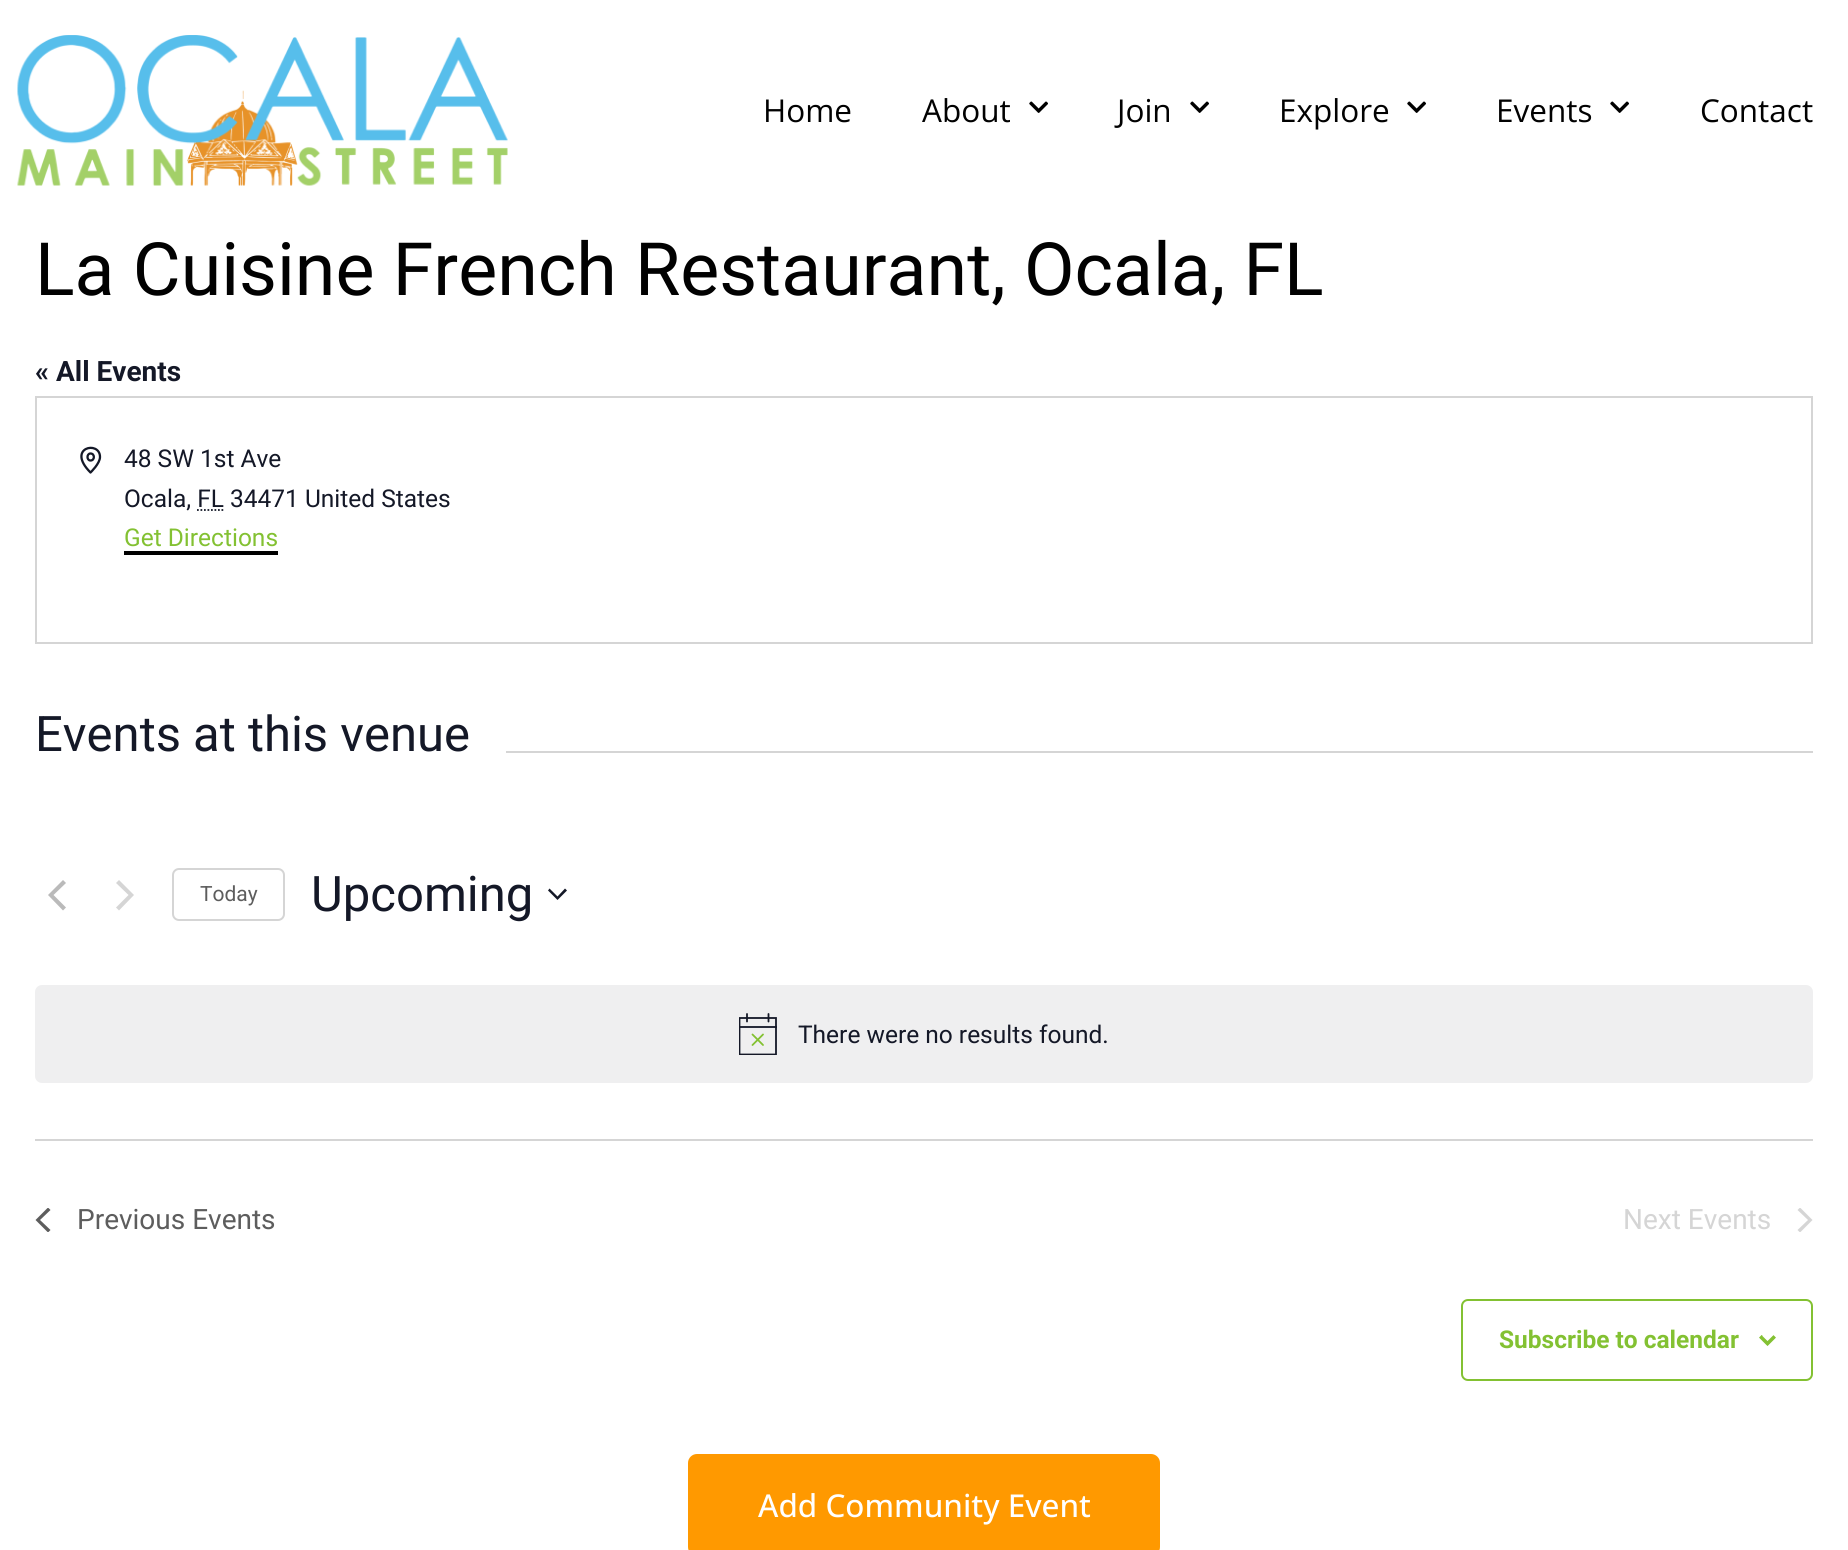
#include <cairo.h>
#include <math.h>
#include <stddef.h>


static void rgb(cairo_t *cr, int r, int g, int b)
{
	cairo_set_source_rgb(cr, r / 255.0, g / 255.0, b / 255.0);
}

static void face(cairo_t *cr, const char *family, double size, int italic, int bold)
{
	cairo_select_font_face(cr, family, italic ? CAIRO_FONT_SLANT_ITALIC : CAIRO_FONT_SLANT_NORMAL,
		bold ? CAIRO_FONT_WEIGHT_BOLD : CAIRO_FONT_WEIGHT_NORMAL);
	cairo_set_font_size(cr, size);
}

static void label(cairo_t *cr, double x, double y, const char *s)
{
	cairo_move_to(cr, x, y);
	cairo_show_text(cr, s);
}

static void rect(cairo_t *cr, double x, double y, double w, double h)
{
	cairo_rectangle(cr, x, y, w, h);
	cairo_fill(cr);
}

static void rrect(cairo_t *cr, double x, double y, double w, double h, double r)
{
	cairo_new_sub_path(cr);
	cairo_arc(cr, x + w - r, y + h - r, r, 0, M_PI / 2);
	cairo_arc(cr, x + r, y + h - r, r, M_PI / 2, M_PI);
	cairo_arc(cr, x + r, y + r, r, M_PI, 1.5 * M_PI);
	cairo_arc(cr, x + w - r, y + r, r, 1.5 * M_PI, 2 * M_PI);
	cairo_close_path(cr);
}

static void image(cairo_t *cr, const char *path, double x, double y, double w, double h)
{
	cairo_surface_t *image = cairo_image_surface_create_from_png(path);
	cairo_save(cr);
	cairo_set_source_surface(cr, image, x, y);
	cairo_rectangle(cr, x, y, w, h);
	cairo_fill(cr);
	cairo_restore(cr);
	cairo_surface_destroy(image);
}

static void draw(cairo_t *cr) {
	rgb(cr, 255, 255, 255);
	cairo_paint(cr);
	image(cr, "image0.png", 17, 35, 491, 151);
	face(cr, "Open Sans", 31.5, 0, 0);
	rgb(cr, 1, 1, 1);
	label(cr, 763, 122, "Home");
	label(cr, 922, 122, "About");
	image(cr, "image1.png", 1029, 101, 19, 12);
	label(cr, 1117, 122, "Join");
	image(cr, "image1.png", 1190, 101, 19, 12);
	label(cr, 1279, 122, "Explore");
	image(cr, "image1.png", 1407, 101, 19, 12);
	label(cr, 1496, 122, "Events");
	image(cr, "image1.png", 1610, 101, 19, 12);
	label(cr, 1700, 122, "Contact");
	face(cr, "Roboto", 73.5, 0, 0);
	label(cr, 35, 295, "La Cuisine French Restaurant, Ocala, FL");
	face(cr, "Roboto", 28, 0, 1);
	rgb(cr, 20, 24, 39);
	label(cr, 35, 381, "« All Events");
	cairo_rectangle(cr, 36, 397, 1776, 246);
	rgb(cr, 213, 213, 213);
	cairo_stroke(cr);
	cairo_new_path(cr);
	cairo_move_to(cr, 100, 457);
	cairo_curve_to(cr, 100, 463.5, 90.5, 472.5, 90.5, 472.5);
	cairo_curve_to(cr, 65.5, 447.5, 100, 440, 100, 457);
	cairo_close_path(cr);
	cairo_move_to(cr, 90.5, 460.5);
	cairo_curve_to(cr, 95, 460.5, 95, 453.5, 90.5, 453.5);
	cairo_curve_to(cr, 86.5, 453.5, 86.5, 460.5, 90.5, 460.5);
	cairo_close_path(cr);
	rgb(cr, 20, 24, 39);
	cairo_set_line_width(cr, 2.3);
	cairo_set_line_cap(cr, CAIRO_LINE_CAP_ROUND);
	cairo_set_line_join(cr, CAIRO_LINE_JOIN_ROUND);
	cairo_stroke(cr);
	face(cr, "Roboto", 24.5, 0, 0);
	label(cr, 124, 467, "48 SW 1st Ave");
	label(cr, 124, 507, "Ocala, FL 34471 United States");
	cairo_new_path(cr);
	cairo_move_to(cr, 197, 510);
	cairo_line_to(cr, 223.5, 510);
	cairo_set_line_width(cr, 1.8);
	cairo_set_line_cap(cr, CAIRO_LINE_CAP_BUTT);
	cairo_set_line_join(cr, CAIRO_LINE_JOIN_MITER);
	cairo_set_dash(cr, (double[]){1.75, 1.75}, 2, 0);
	cairo_stroke(cr);
	rgb(cr, 131, 193, 50);
	label(cr, 124, 546, "Get Directions");
	rgb(cr, 0, 0, 0);
	rect(cr, 124, 551, 154, 4);
	face(cr, "Roboto", 49, 0, 0);
	rgb(cr, 20, 24, 39);
	label(cr, 35, 751, "Events at this venue");
	rgb(cr, 213, 213, 213);
	rect(cr, 506, 751, 1307, 2);
	rgb(cr, 186, 186, 186);
	cairo_new_path(cr);
	cairo_move_to(cr, 66, 907.5);
	cairo_line_to(cr, 63, 910.5);
	cairo_line_to(cr, 48, 895);
	cairo_line_to(cr, 63, 880);
	cairo_line_to(cr, 66, 883);
	cairo_line_to(cr, 53.5, 895);
	cairo_close_path(cr);
	cairo_fill(cr);
	rgb(cr, 213, 213, 213);
	cairo_new_path(cr);
	cairo_move_to(cr, 116, 883);
	cairo_line_to(cr, 119, 880);
	cairo_line_to(cr, 134, 895);
	cairo_line_to(cr, 119, 910.5);
	cairo_line_to(cr, 116, 907.5);
	cairo_line_to(cr, 128.5, 895);
	cairo_close_path(cr);
	cairo_fill(cr);
	rrect(cr, 173, 869, 111, 51, 6);
	cairo_set_line_width(cr, 2);
	cairo_set_dash(cr, NULL, 0, 0);
	cairo_stroke(cr);
	face(cr, "Roboto", 21, 0, 0);
	rgb(cr, 93, 93, 93);
	label(cr, 200, 901, "Today");
	face(cr, "Roboto", 49, 0, 0);
	rgb(cr, 20, 24, 39);
	label(cr, 311, 911, "Upcoming");
	cairo_set_fill_rule(cr, CAIRO_FILL_RULE_EVEN_ODD);
	cairo_new_path(cr);
	cairo_move_to(cr, 549.5, 888.5);
	cairo_line_to(cr, 557.5, 896.5);
	cairo_line_to(cr, 565, 888.5);
	cairo_line_to(cr, 567, 890.5);
	cairo_line_to(cr, 557.5, 900);
	cairo_line_to(cr, 548, 890.5);
	cairo_close_path(cr);
	cairo_fill(cr);
	rgb(cr, 239, 239, 240);
	rrect(cr, 35, 985, 1778, 98, 7);
	cairo_fill(cr);
	cairo_save(cr);
	cairo_set_fill_rule(cr, CAIRO_FILL_RULE_WINDING);
	cairo_rectangle(cr, 739, 1013, 38, 42);
	cairo_clip(cr);
	cairo_new_path(cr);
	cairo_move_to(cr, 739.5, 1018);
	cairo_line_to(cr, 776, 1018);
	cairo_line_to(cr, 776, 1054.5);
	cairo_line_to(cr, 739.5, 1054.5);
	cairo_close_path(cr);
	rgb(cr, 20, 24, 39);
	cairo_set_line_width(cr, 1.8);
	cairo_stroke(cr);
	cairo_restore(cr);
	cairo_new_path(cr);
	cairo_move_to(cr, 752.5, 1034.5);
	cairo_line_to(cr, 763, 1045);
	cairo_move_to(cr, 763, 1034.5);
	cairo_line_to(cr, 752.5, 1045);
	rgb(cr, 131, 193, 50);
	cairo_set_line_width(cr, 1.8);
	cairo_set_line_cap(cr, CAIRO_LINE_CAP_ROUND);
	cairo_stroke(cr);
	cairo_new_path(cr);
	cairo_move_to(cr, 747, 1014);
	cairo_line_to(cr, 747, 1021.5);
	cairo_move_to(cr, 768.5, 1014);
	cairo_line_to(cr, 768.5, 1021.5);
	rgb(cr, 20, 24, 39);
	cairo_stroke(cr);
	cairo_set_source_rgba(cr, 0.078, 0.094, 0.153, 0.9);
	rect(cr, 739, 1026, 38, 2);
	face(cr, "Roboto", 24.5, 0, 0);
	rgb(cr, 20, 24, 39);
	label(cr, 798, 1043, "There were no results found.");
	rgb(cr, 213, 213, 213);
	rect(cr, 35, 1139, 1778, 2);
	cairo_save(cr);
	cairo_set_fill_rule(cr, CAIRO_FILL_RULE_WINDING);
	cairo_rectangle(cr, 35, 1208, 16, 24);
	cairo_clip(cr);
	rgb(cr, 93, 93, 93);
	cairo_new_path(cr);
	cairo_move_to(cr, 50.5, 1230);
	cairo_line_to(cr, 48, 1232.5);
	cairo_line_to(cr, 35.5, 1220);
	cairo_line_to(cr, 48, 1207.5);
	cairo_line_to(cr, 50.5, 1210);
	cairo_line_to(cr, 40, 1220);
	cairo_close_path(cr);
	cairo_fill(cr);
	cairo_restore(cr);
	face(cr, "Roboto", 28, 0, 0);
	rgb(cr, 93, 93, 93);
	label(cr, 77, 1229, "Previous Events");
	rgb(cr, 213, 213, 213);
	label(cr, 1623, 1229, "Next Events");
	cairo_save(cr);
	cairo_set_fill_rule(cr, CAIRO_FILL_RULE_WINDING);
	cairo_rectangle(cr, 1797, 1208, 16, 24);
	cairo_clip(cr);
	cairo_new_path(cr);
	cairo_move_to(cr, 1797.5, 1210);
	cairo_line_to(cr, 1800, 1207.5);
	cairo_line_to(cr, 1812.5, 1220);
	cairo_line_to(cr, 1800, 1232.5);
	cairo_line_to(cr, 1797.5, 1230);
	cairo_line_to(cr, 1808, 1220);
	cairo_close_path(cr);
	cairo_fill(cr);
	cairo_restore(cr);
	rrect(cr, 1462, 1300, 350, 80, 6);
	rgb(cr, 131, 193, 50);
	cairo_set_line_width(cr, 2);
	cairo_set_line_cap(cr, CAIRO_LINE_CAP_BUTT);
	cairo_stroke(cr);
	face(cr, "Roboto", 24.5, 0, 1);
	label(cr, 1499, 1348, "Subscribe to calendar");
	image(cr, "image2.png", 1759, 1335, 17, 11);
	rgb(cr, 255, 153, 0);
	rrect(cr, 688, 1454, 472, 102, 9);
	cairo_fill(cr);
	face(cr, "Open Sans Medium", 31.5, 0, 0);
	rgb(cr, 255, 255, 255);
	label(cr, 758, 1517, "Add Community Event");
}

int main(void) {
	cairo_surface_t *surface = cairo_image_surface_create(CAIRO_FORMAT_RGB24, 1848, 1550);
	cairo_t *cr = cairo_create(surface);
	cairo_font_options_t *options = cairo_font_options_create();
	cairo_font_options_set_hint_metrics(options, CAIRO_HINT_METRICS_OFF);
	cairo_font_options_set_hint_style(options, CAIRO_HINT_STYLE_NONE);
	cairo_set_font_options(cr, options);
	cairo_set_miter_limit(cr, 4);
	draw(cr);
	cairo_surface_write_to_png(surface, "render.png");
	cairo_font_options_destroy(options);
	cairo_destroy(cr);
	cairo_surface_destroy(surface);
	return 0;
}
